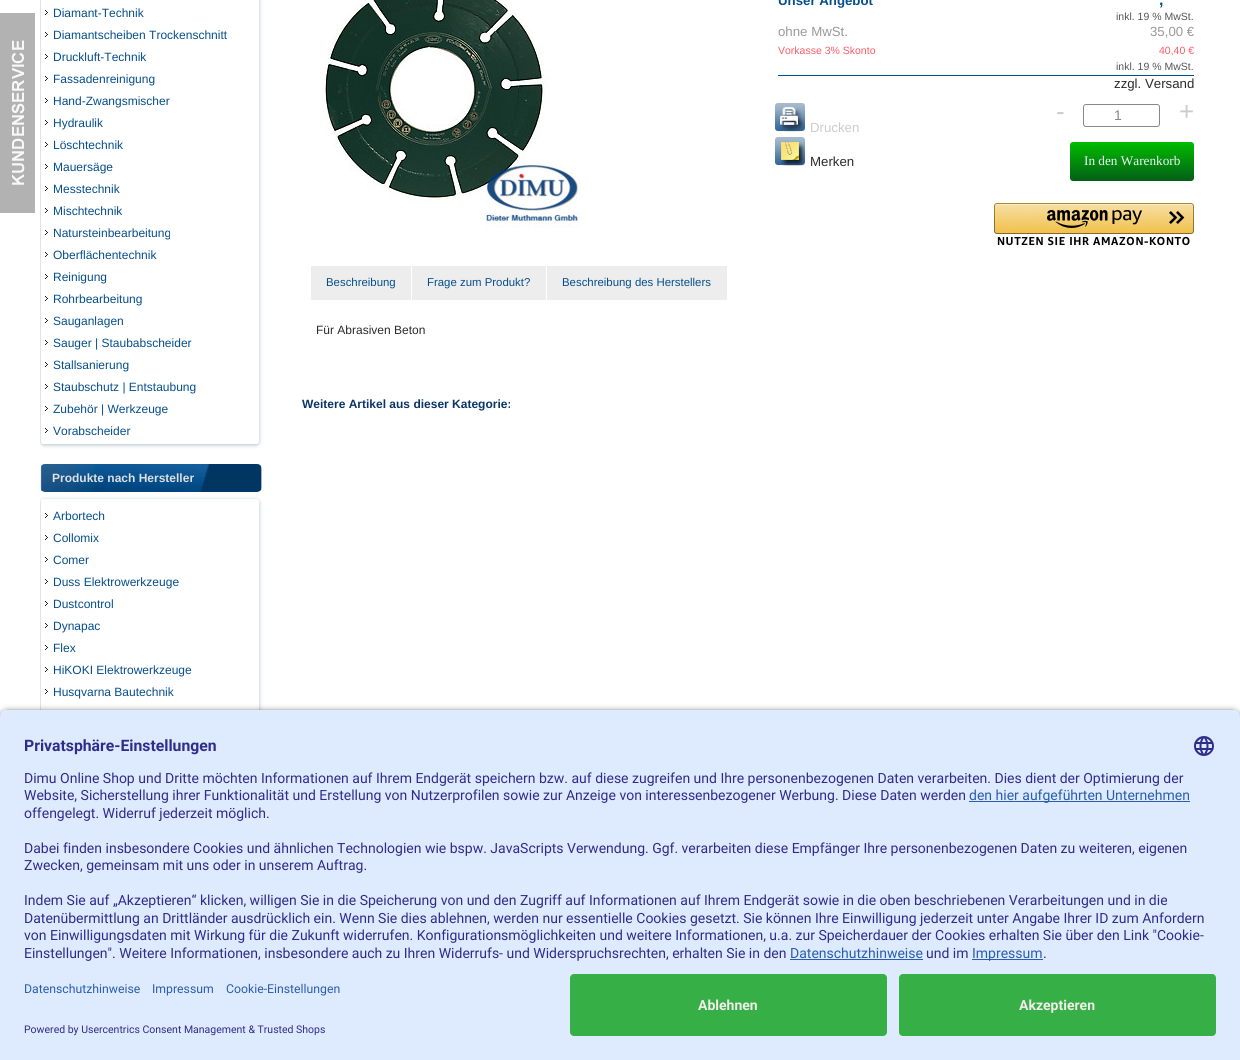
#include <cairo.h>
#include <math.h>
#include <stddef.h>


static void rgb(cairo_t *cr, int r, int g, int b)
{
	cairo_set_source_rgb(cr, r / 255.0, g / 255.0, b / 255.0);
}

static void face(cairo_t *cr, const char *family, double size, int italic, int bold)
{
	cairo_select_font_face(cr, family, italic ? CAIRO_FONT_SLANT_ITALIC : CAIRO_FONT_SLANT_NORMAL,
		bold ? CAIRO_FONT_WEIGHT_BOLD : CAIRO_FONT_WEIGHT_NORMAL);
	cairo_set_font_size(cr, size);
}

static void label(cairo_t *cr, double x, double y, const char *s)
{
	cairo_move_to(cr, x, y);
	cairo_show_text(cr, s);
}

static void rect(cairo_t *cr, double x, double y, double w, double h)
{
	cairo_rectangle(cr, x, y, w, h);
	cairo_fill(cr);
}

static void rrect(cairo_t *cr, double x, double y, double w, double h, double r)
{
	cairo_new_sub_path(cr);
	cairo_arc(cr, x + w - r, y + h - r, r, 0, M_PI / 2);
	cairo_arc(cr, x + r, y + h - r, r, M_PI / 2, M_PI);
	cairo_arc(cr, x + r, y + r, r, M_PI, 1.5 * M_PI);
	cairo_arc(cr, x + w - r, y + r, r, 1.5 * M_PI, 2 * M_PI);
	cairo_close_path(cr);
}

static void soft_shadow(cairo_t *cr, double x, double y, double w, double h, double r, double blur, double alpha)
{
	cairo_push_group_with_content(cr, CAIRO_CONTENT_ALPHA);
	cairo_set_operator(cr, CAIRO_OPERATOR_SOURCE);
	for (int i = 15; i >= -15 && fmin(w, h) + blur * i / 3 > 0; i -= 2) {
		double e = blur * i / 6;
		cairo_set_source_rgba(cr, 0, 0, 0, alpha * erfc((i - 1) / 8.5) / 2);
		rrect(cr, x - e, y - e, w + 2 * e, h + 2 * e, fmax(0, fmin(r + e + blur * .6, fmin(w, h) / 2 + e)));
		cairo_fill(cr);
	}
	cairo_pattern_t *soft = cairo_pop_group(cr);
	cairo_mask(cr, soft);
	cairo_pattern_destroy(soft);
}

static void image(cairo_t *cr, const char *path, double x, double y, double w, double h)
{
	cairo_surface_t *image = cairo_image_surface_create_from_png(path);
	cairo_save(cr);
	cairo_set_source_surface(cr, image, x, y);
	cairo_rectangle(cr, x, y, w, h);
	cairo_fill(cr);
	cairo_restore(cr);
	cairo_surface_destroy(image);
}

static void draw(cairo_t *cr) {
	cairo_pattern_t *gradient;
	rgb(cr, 255, 255, 255);
	cairo_paint(cr);
	cairo_save(cr);
	cairo_rectangle(cr, 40, 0, 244, 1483);
	cairo_clip(cr);
	cairo_set_fill_rule(cr, CAIRO_FILL_RULE_EVEN_ODD);
	cairo_new_path(cr);
	cairo_move_to(cr, 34, 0);
	cairo_line_to(cr, 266, 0);
	cairo_line_to(cr, 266, 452);
	cairo_line_to(cr, 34, 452);
	cairo_close_path(cr);
	cairo_move_to(cr, 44, -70);
	cairo_line_to(cr, 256, -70);
	cairo_curve_to(cr, 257.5, -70, 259, -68.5, 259, -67);
	cairo_line_to(cr, 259, 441);
	cairo_curve_to(cr, 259, 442.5, 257.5, 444, 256, 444);
	cairo_line_to(cr, 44, 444);
	cairo_curve_to(cr, 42.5, 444, 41, 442.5, 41, 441);
	cairo_line_to(cr, 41, -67);
	cairo_curve_to(cr, 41, -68.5, 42.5, -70, 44, -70);
	cairo_close_path(cr);
	cairo_clip(cr);
	rgb(cr, 175, 190, 203);
	soft_shadow(cr, 41, -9, 218, 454, 3, 2, 1);
	cairo_restore(cr);
	image(cr, "image0.png", 0, 13, 35, 200);
	cairo_set_source_rgba(cr, 1, 1, 1, 0.7);
	rrect(cr, 41, -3, 218, 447, 3);
	cairo_fill(cr);
	image(cr, "image1.png", 45, 10, 3, 5);
	face(cr, "Liberation Sans", 12, 0, 0);
	rgb(cr, 5, 78, 140);
	label(cr, 53, 17, "Diamant-Technik");
	image(cr, "image1.png", 45, 32, 3, 5);
	label(cr, 53, 39, "Diamantscheiben Trockenschnitt");
	image(cr, "image1.png", 45, 54, 3, 5);
	label(cr, 53, 61, "Druckluft-Technik");
	image(cr, "image1.png", 45, 76, 3, 5);
	label(cr, 53, 83, "Fassadenreinigung");
	image(cr, "image1.png", 45, 98, 3, 5);
	label(cr, 53, 105, "Hand-Zwangsmischer");
	image(cr, "image1.png", 45, 120, 3, 5);
	label(cr, 53, 127, "Hydraulik");
	image(cr, "image1.png", 45, 142, 3, 5);
	label(cr, 53, 149, "Löschtechnik");
	image(cr, "image1.png", 45, 164, 3, 5);
	label(cr, 53, 171, "Mauersäge");
	image(cr, "image1.png", 45, 186, 3, 5);
	label(cr, 53, 193, "Messtechnik");
	image(cr, "image1.png", 45, 208, 3, 5);
	label(cr, 53, 215, "Mischtechnik");
	image(cr, "image1.png", 45, 230, 3, 5);
	label(cr, 53, 237, "Natursteinbearbeitung");
	image(cr, "image1.png", 45, 252, 3, 5);
	label(cr, 53, 259, "Oberflächentechnik");
	image(cr, "image1.png", 45, 274, 3, 5);
	label(cr, 53, 281, "Reinigung");
	image(cr, "image1.png", 45, 296, 3, 5);
	label(cr, 53, 303, "Rohrbearbeitung");
	image(cr, "image1.png", 45, 318, 3, 5);
	label(cr, 53, 325, "Sauganlagen");
	image(cr, "image1.png", 45, 340, 3, 5);
	label(cr, 53, 347, "Sauger | Staubabscheider");
	image(cr, "image1.png", 45, 362, 3, 5);
	label(cr, 53, 369, "Stallsanierung");
	image(cr, "image1.png", 45, 384, 3, 5);
	label(cr, 53, 391, "Staubschutz | Entstaubung");
	image(cr, "image1.png", 45, 406, 3, 5);
	label(cr, 53, 413, "Zubehör | Werkzeuge");
	image(cr, "image1.png", 45, 428, 3, 5);
	label(cr, 53, 435, "Vorabscheider");
	image(cr, "image2.png", 40, 464, 222, 28);
	face(cr, "Liberation Sans", 12, 0, 1);
	rgb(cr, 223, 223, 223);
	label(cr, 52, 482, "Produkte nach Hersteller");
	cairo_save(cr);
	cairo_rectangle(cr, 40, 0, 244, 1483);
	cairo_clip(cr);
	cairo_set_fill_rule(cr, CAIRO_FILL_RULE_EVEN_ODD);
	cairo_new_path(cr);
	cairo_move_to(cr, 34, 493);
	cairo_line_to(cr, 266, 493);
	cairo_line_to(cr, 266, 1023);
	cairo_line_to(cr, 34, 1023);
	cairo_close_path(cr);
	cairo_move_to(cr, 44, 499);
	cairo_line_to(cr, 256, 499);
	cairo_curve_to(cr, 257.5, 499, 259, 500.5, 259, 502);
	cairo_line_to(cr, 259, 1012);
	cairo_curve_to(cr, 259, 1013.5, 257.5, 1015, 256, 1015);
	cairo_line_to(cr, 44, 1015);
	cairo_curve_to(cr, 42.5, 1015, 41, 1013.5, 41, 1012);
	cairo_line_to(cr, 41, 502);
	cairo_curve_to(cr, 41, 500.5, 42.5, 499, 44, 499);
	cairo_close_path(cr);
	cairo_clip(cr);
	rgb(cr, 175, 190, 203);
	soft_shadow(cr, 41, 500, 218, 516, 3, 2, 1);
	cairo_restore(cr);
	cairo_set_source_rgba(cr, 1, 1, 1, 0.7);
	rrect(cr, 41, 499, 218, 516, 3);
	cairo_fill(cr);
	image(cr, "image1.png", 45, 513, 3, 5);
	face(cr, "Liberation Sans", 12, 0, 0);
	rgb(cr, 5, 78, 140);
	label(cr, 53, 520, "Arbortech");
	image(cr, "image1.png", 45, 535, 3, 5);
	label(cr, 53, 542, "Collomix");
	image(cr, "image1.png", 45, 557, 3, 5);
	label(cr, 53, 564, "Comer");
	image(cr, "image1.png", 45, 579, 3, 5);
	label(cr, 53, 586, "Duss Elektrowerkzeuge");
	image(cr, "image1.png", 45, 601, 3, 5);
	label(cr, 53, 608, "Dustcontrol");
	image(cr, "image1.png", 45, 623, 3, 5);
	label(cr, 53, 630, "Dynapac");
	image(cr, "image1.png", 45, 645, 3, 5);
	label(cr, 53, 652, "Flex");
	image(cr, "image1.png", 45, 667, 3, 5);
	label(cr, 53, 674, "HiKOKI Elektrowerkzeuge");
	image(cr, "image1.png", 45, 689, 3, 5);
	label(cr, 53, 696, "Husqvarna Bautechnik");
	image(cr, "image3.png", 325, 0, 256, 228);
	rect(cr, 778, 75, 416, 1);
	face(cr, "Liberation Sans", 13.25, 0, 1);
	label(cr, 778, 5, "Unser Angebot");
	face(cr, "Liberation Sans", 16, 0, 1);
	label(cr, 1159, 5, ",");
	face(cr, "Liberation Sans", 10.5, 0, 0);
	rgb(cr, 85, 85, 85);
	label(cr, 1116, 20, "inkl. 19 % MwSt.");
	face(cr, "Liberation Sans", 13.25, 0, 0);
	rgb(cr, 153, 153, 153);
	label(cr, 778, 36, "ohne MwSt.");
	label(cr, 1150, 36, "35,00 €");
	face(cr, "Liberation Sans", 10.5, 0, 0);
	rgb(cr, 251, 91, 103);
	label(cr, 778, 54, "Vorkasse 3% Skonto");
	label(cr, 1159, 54, "40,40 €");
	rgb(cr, 85, 85, 85);
	label(cr, 1116, 70, "inkl. 19 % MwSt.");
	face(cr, "Liberation Sans", 13.25, 0, 0);
	rgb(cr, 43, 43, 43);
	label(cr, 1114, 88, "zzgl. Versand");
	image(cr, "image4.png", 775, 103, 30, 29);
	rgb(cr, 204, 204, 204);
	label(cr, 810, 132, "Drucken");
	image(cr, "image5.png", 775, 137, 31, 29);
	rgb(cr, 43, 43, 43);
	label(cr, 810, 166, "Merken");
	face(cr, "Liberation Sans", 26, 0, 0);
	rgb(cr, 204, 204, 204);
	label(cr, 1056, 120, "-");
	rrect(cr, 1083.5, 104.5, 76, 22, 2.5);
	rgb(cr, 136, 136, 136);
	cairo_set_line_width(cr, 1);
	cairo_stroke(cr);
	face(cr, "Liberation Sans", 14, 0, 0);
	label(cr, 1114, 120, "1");
	face(cr, "Liberation Sans", 26, 0, 0);
	rgb(cr, 204, 204, 204);
	label(cr, 1179, 120, "+");
	gradient = cairo_pattern_create_linear(1132, 142, 1132, 181);
	cairo_pattern_add_color_stop_rgba(gradient, 0, 0, 0.741, 0, 1);
	cairo_pattern_add_color_stop_rgba(gradient, 1, 0.012, 0.369, 0.09, 1);
	cairo_set_source(cr, gradient);
	cairo_pattern_destroy(gradient);
	rrect(cr, 1070, 142, 124, 39, 3);
	cairo_fill(cr);
	face(cr, "Liberation Serif", 13.25, 0, 0);
	rgb(cr, 239, 243, 249);
	label(cr, 1084, 165, "In den Warenkorb");
	image(cr, "image6.png", 994, 203, 200, 43);
	rgb(cr, 237, 237, 237);
	rect(cr, 311, 266, 100, 34);
	face(cr, "Liberation Sans", 11.4, 0, 0);
	rgb(cr, 5, 78, 140);
	label(cr, 326, 286, "Beschreibung");
	rgb(cr, 237, 237, 237);
	rect(cr, 412, 266, 134, 34);
	rgb(cr, 5, 78, 140);
	label(cr, 427, 286, "Frage zum Produkt?");
	rgb(cr, 237, 237, 237);
	rect(cr, 547, 266, 180, 34);
	rgb(cr, 5, 78, 140);
	label(cr, 562, 286, "Beschreibung des Herstellers");
	face(cr, "Liberation Sans", 12, 0, 0);
	rgb(cr, 43, 43, 43);
	label(cr, 316, 334, "Für Abrasiven Beton");
	face(cr, "Liberation Sans", 12, 0, 1);
	rgb(cr, 10, 53, 103);
	label(cr, 302, 408, "Weitere Artikel aus dieser Kategorie:");
	rgb(cr, 0, 0, 0);
	soft_shadow(cr, 0, 712, 1240, 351, 8, 3.5, 0.8);
	cairo_save(cr);
	cairo_new_path(cr);
	cairo_move_to(cr, 8, 709);
	cairo_line_to(cr, 1232, 709);
	cairo_curve_to(cr, 1236.5, 709, 1240, 712.5, 1240, 717);
	cairo_line_to(cr, 1240, 966);
	cairo_line_to(cr, 0, 966);
	cairo_line_to(cr, 0, 717);
	cairo_curve_to(cr, 0, 712.5, 3.5, 709, 8, 709);
	cairo_close_path(cr);
	cairo_clip(cr);
	rgb(cr, 222, 235, 255);
	rect(cr, 0, 710, 1240, 256);
	cairo_restore(cr);
	face(cr, "Roboto", 15.75, 0, 1);
	rgb(cr, 47, 45, 139);
	label(cr, 24, 751, "Privatsphäre-Einstellungen");
	image(cr, "image7.png", 1194, 736, 20, 20);
	face(cr, "Roboto", 14, 0, 0);
	label(cr, 24, 783, "Dimu Online Shop und Dritte möchten Informationen auf Ihrem Endgerät speichern bzw. auf diese zugreifen und Ihre personenbezogenen Daten verarbeiten. Dies dient der Optimierung der");
	label(cr, 24, 800, "Website, Sicherstellung ihrer Funktionalität und Erstellung von Nutzerprofilen sowie zur Anzeige von interessenbezogener Werbung. Diese Daten werden");
	rgb(cr, 42, 93, 176);
	rect(cr, 969, 801, 221, 1);
	label(cr, 969, 800, "den hier aufgeführten Unternehmen");
	rgb(cr, 47, 45, 139);
	label(cr, 24, 818, "offengelegt. Widerruf jederzeit möglich.");
	label(cr, 24, 853, "Dabei finden insbesondere Cookies und ähnlichen Technologien wie bspw. JavaScripts Verwendung. Ggf. verarbeiten diese Empfänger Ihre personenbezogenen Daten zu weiteren, eigenen");
	label(cr, 24, 870, "Zwecken, gemeinsam mit uns oder in unserem Auftrag.");
	label(cr, 24, 905, "Indem Sie auf „Akzeptieren“ klicken, willigen Sie in die Speicherung von und den Zugriff auf Informationen auf Ihrem Endgerät sowie in die oben beschriebenen Verarbeitungen und in die");
	label(cr, 24, 923, "Datenübermittlung an Drittländer ausdrücklich ein. Wenn Sie dies ablehnen, werden nur essentielle Cookies gesetzt. Sie können Ihre Einwilligung jederzeit unter Angabe Ihrer ID zum Anfordern");
	label(cr, 24, 940, "von Einwilligungsdaten mit Wirkung für die Zukunft widerrufen. Konfigurationsmöglichkeiten und weitere Informationen, u.a. zur Speicherdauer der Cookies erhalten Sie über den Link \"Cookie-");
	label(cr, 24, 958, "Einstellungen\". Weitere Informationen, insbesondere auch zu Ihren Widerrufs- und Widerspruchsrechten, erhalten Sie in den");
	rgb(cr, 42, 93, 176);
	label(cr, 790, 958, "Datenschutzhinweise");
	rect(cr, 790, 959, 133, 1);
	rgb(cr, 47, 45, 139);
	label(cr, 926, 958, "und im");
	rgb(cr, 42, 93, 176);
	rect(cr, 972, 959, 71, 1);
	label(cr, 972, 958, "Impressum");
	rgb(cr, 47, 45, 139);
	label(cr, 1043, 958, ".");
	rgb(cr, 222, 235, 255);
	rect(cr, 0, 966, 1240, 94);
	face(cr, "Roboto", 12.25, 0, 0);
	rgb(cr, 42, 93, 176);
	label(cr, 24, 993, "Datenschutzhinweise");
	label(cr, 152, 993, "Impressum");
	label(cr, 226, 993, "Cookie-Einstellungen");
	face(cr, "Roboto", 10.5, 0, 0);
	rgb(cr, 47, 45, 139);
	label(cr, 24, 1033, "Powered by Usercentrics Consent Management & Trusted Shops");
	rgb(cr, 54, 175, 71);
	rrect(cr, 570, 974, 317, 62, 4);
	cairo_fill(cr);
	face(cr, "Roboto", 14, 0, 1);
	rgb(cr, 242, 236, 236);
	label(cr, 698, 1010, "Ablehnen");
	rgb(cr, 54, 175, 71);
	rrect(cr, 899, 974, 317, 62, 4);
	cairo_fill(cr);
	rgb(cr, 242, 236, 236);
	label(cr, 1019, 1010, "Akzeptieren");
}

int main(void) {
	cairo_surface_t *surface = cairo_image_surface_create(CAIRO_FORMAT_RGB24, 1240, 1060);
	cairo_t *cr = cairo_create(surface);
	cairo_font_options_t *options = cairo_font_options_create();
	cairo_font_options_set_hint_metrics(options, CAIRO_HINT_METRICS_OFF);
	cairo_font_options_set_hint_style(options, CAIRO_HINT_STYLE_NONE);
	cairo_set_font_options(cr, options);
	cairo_set_miter_limit(cr, 4);
	draw(cr);
	cairo_surface_write_to_png(surface, "render.png");
	cairo_font_options_destroy(options);
	cairo_destroy(cr);
	cairo_surface_destroy(surface);
	return 0;
}
